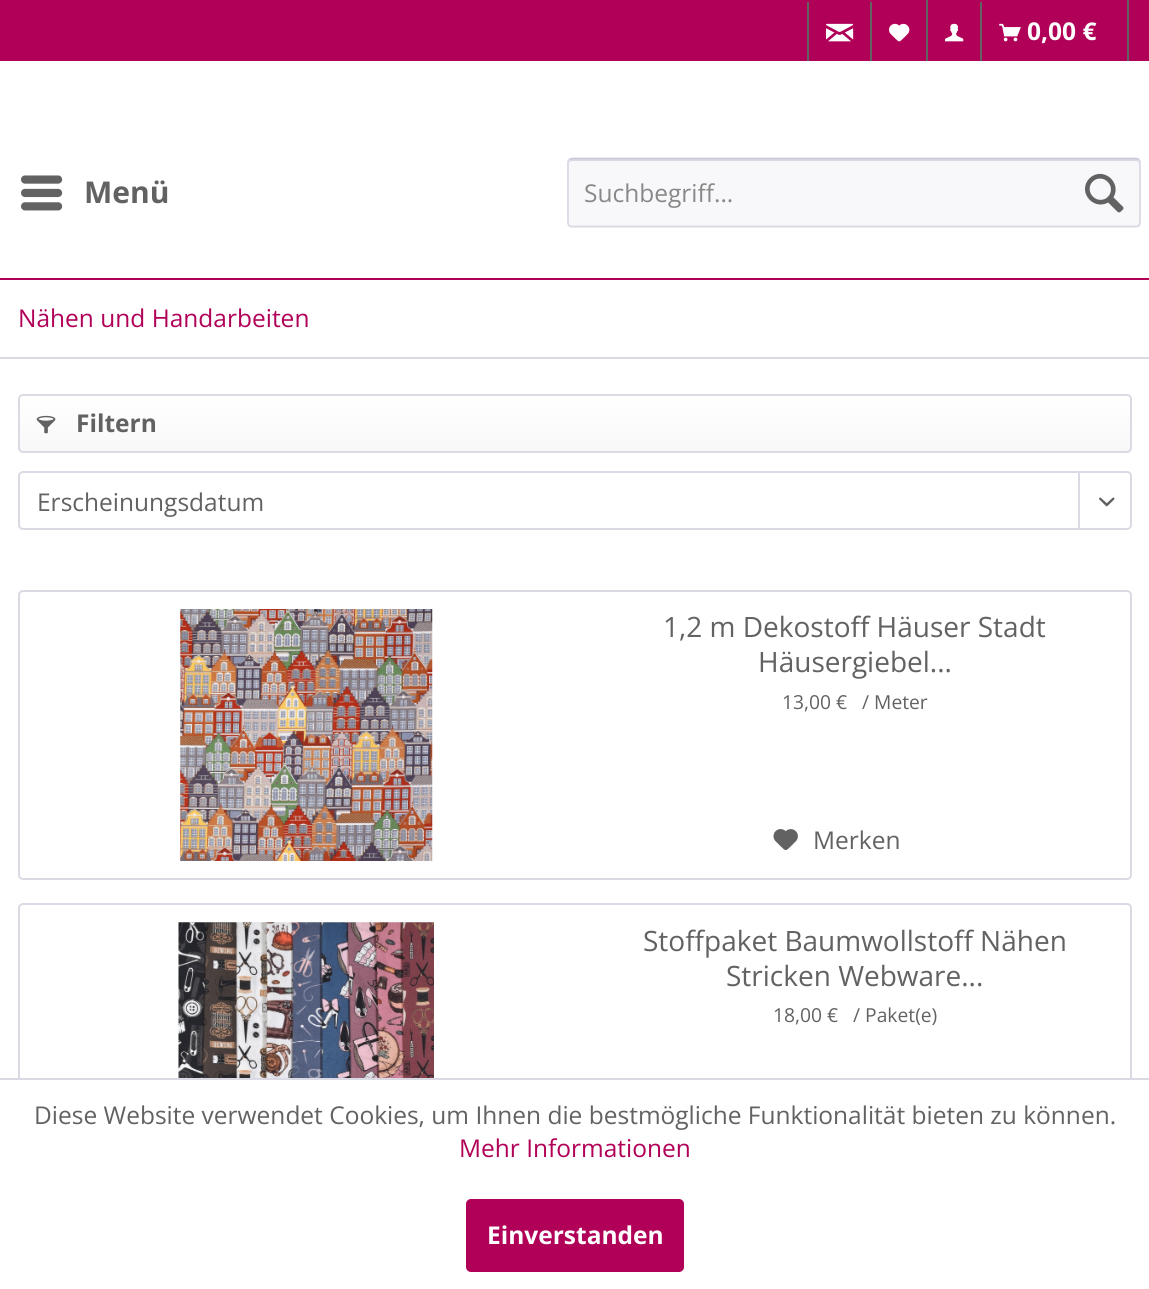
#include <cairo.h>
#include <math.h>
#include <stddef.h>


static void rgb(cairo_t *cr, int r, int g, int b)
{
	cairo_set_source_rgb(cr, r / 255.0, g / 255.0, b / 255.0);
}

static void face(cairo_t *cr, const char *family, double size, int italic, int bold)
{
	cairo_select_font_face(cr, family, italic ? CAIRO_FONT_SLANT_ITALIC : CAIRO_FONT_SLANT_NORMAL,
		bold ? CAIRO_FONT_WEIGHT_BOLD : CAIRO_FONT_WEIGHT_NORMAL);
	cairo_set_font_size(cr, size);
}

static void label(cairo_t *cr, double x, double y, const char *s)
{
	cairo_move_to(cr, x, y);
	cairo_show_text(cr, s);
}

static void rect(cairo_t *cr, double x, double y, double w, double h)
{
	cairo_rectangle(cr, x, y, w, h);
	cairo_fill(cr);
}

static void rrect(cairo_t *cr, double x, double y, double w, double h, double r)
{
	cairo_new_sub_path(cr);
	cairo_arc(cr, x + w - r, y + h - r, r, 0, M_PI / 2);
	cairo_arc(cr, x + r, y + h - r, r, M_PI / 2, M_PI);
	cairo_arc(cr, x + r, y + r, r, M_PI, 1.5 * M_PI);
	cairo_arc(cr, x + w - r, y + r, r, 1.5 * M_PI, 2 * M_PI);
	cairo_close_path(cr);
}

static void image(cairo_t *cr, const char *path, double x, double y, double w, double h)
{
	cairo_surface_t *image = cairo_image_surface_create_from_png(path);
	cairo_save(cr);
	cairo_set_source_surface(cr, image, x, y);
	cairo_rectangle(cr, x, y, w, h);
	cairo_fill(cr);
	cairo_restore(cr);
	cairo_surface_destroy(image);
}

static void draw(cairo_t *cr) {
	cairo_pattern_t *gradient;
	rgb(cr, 255, 255, 255);
	cairo_paint(cr);
	rgb(cr, 177, 0, 87);
	rect(cr, 0, 278, 1149, 2);
	rect(cr, 0, 0, 1149, 61);
	rgb(cr, 98, 98, 98);
	rect(cr, 807, 2, 2, 59);
	rect(cr, 870, 2, 2, 59);
	image(cr, "image0.png", 826, 23, 28, 19);
	rect(cr, 926, 0, 2, 61);
	image(cr, "image1.png", 889, 23, 21, 19);
	rect(cr, 980, 2, 2, 59);
	image(cr, "image2.png", 945, 23, 19, 19);
	rect(cr, 1127, 0, 2, 61);
	image(cr, "image3.png", 999, 23, 22, 19);
	face(cr, "Open Sans", 24.5, 0, 1);
	rgb(cr, 255, 255, 255);
	label(cr, 1027, 40, "0,00 €");
	image(cr, "image4.png", 21, 175, 42, 36);
	face(cr, "Open Sans", 30, 0, 1);
	rgb(cr, 98, 98, 98);
	label(cr, 84, 203, "Menü");
	rgb(cr, 248, 248, 250);
	rrect(cr, 567, 158, 574, 70, 5);
	cairo_fill(cr);
	rgb(cr, 218, 218, 229);
	cairo_new_path(cr);
	cairo_move_to(cr, 572, 161);
	cairo_line_to(cr, 1136, 161);
	cairo_curve_to(cr, 1138, 161, 1139, 163, 1139, 164);
	cairo_curve_to(cr, 1139, 161, 1138, 159, 1135, 159);
	cairo_line_to(cr, 573, 159);
	cairo_curve_to(cr, 570, 159, 569, 161, 569, 164);
	cairo_curve_to(cr, 569, 163, 570, 161, 572, 161);
	cairo_close_path(cr);
	cairo_fill(cr);
	cairo_new_path(cr);
	cairo_move_to(cr, 569, 159.5);
	cairo_line_to(cr, 572, 158.5);
	cairo_line_to(cr, 1136, 158.5);
	cairo_line_to(cr, 1139, 159.5);
	rgb(cr, 203, 203, 219);
	cairo_set_line_width(cr, 1.8);
	cairo_stroke(cr);
	cairo_new_path(cr);
	cairo_move_to(cr, 1139, 159.5);
	cairo_curve_to(cr, 1139.5, 160.5, 1140, 161.5, 1140, 163);
	cairo_line_to(cr, 1140, 222);
	cairo_curve_to(cr, 1140, 223.5, 1139.5, 224.5, 1139, 225.5);
	cairo_curve_to(cr, 1138, 226, 1137, 226.5, 1136, 226.5);
	cairo_line_to(cr, 572, 226.5);
	cairo_curve_to(cr, 571, 226.5, 570, 226, 569, 225.5);
	cairo_curve_to(cr, 568.5, 224.5, 568, 223.5, 568, 222);
	cairo_line_to(cr, 568, 163);
	cairo_curve_to(cr, 568, 161.5, 568.5, 160.5, 569, 159.5);
	rgb(cr, 218, 218, 229);
	cairo_stroke(cr);
	face(cr, "Open Sans", 24.5, 0, 0);
	rgb(cr, 136, 136, 136);
	label(cr, 584, 202, "Suchbegriff...");
	image(cr, "image5.png", 1085, 173, 39, 40);
	rgb(cr, 218, 218, 229);
	rect(cr, 0, 357, 1149, 2);
	rgb(cr, 177, 0, 87);
	label(cr, 18, 327, "Nähen und Handarbeiten");
	gradient = cairo_pattern_create_linear(575, 395, 575, 452);
	cairo_pattern_add_color_stop_rgba(gradient, 0, 1, 1, 1, 1);
	cairo_pattern_add_color_stop_rgba(gradient, 1, 0.973, 0.973, 0.98, 1);
	cairo_set_source(cr, gradient);
	cairo_pattern_destroy(gradient);
	rrect(cr, 19, 396, 1112, 56, 4);
	cairo_fill(cr);
	rrect(cr, 19, 395, 1112, 57, 4);
	rgb(cr, 218, 218, 229);
	cairo_set_line_width(cr, 2);
	cairo_stroke(cr);
	image(cr, "image6.png", 36, 415, 20, 19);
	face(cr, "Open Sans", 24.5, 0, 1);
	rgb(cr, 98, 98, 98);
	label(cr, 76, 432, "Filtern");
	rrect(cr, 19, 472, 1112, 57, 4);
	rgb(cr, 218, 218, 229);
	cairo_stroke(cr);
	face(cr, "Open Sans", 24.5, 0, 0);
	rgb(cr, 98, 98, 98);
	label(cr, 37, 511, "Erscheinungsdatum");
	rgb(cr, 218, 218, 229);
	rect(cr, 1078, 473, 2, 57);
	image(cr, "image7.png", 1099, 497, 16, 10);
	rrect(cr, 19, 591, 1112, 288, 4);
	cairo_stroke(cr);
	image(cr, "image8.png", 180, 609, 253, 252);
	face(cr, "Open Sans", 28, 0, 0);
	rgb(cr, 98, 98, 98);
	label(cr, 663, 637, "1,2 m Dekostoff Häuser Stadt");
	label(cr, 758, 672, "Häusergiebel...");
	face(cr, "Open Sans", 19.25, 0, 0);
	label(cr, 782, 709, "13,00 €   / Meter");
	image(cr, "image9.png", 773, 829, 25, 21);
	face(cr, "Open Sans", 24.5, 0, 0);
	label(cr, 813, 849, "Merken");
	rrect(cr, 19, 904, 1112, 289, 4);
	rgb(cr, 218, 218, 229);
	cairo_stroke(cr);
	image(cr, "image10.png", 178, 922, 256, 156);
	face(cr, "Open Sans", 28, 0, 0);
	rgb(cr, 98, 98, 98);
	label(cr, 643, 951, "Stoffpaket Baumwollstoff Nähen");
	label(cr, 726, 986, "Stricken Webware...");
	face(cr, "Open Sans", 19.25, 0, 0);
	label(cr, 773, 1022, "18,00 €   / Paket(e)");
	rgb(cr, 255, 255, 255);
	rect(cr, 18, 1080, 1114, 114);
	rgb(cr, 218, 218, 229);
	rect(cr, 0, 1078, 1149, 2);
	face(cr, "Open Sans", 24.5, 0, 0);
	rgb(cr, 98, 98, 98);
	label(cr, 34, 1124, "Diese Website verwendet Cookies, um Ihnen die bestmögliche Funktionalität bieten zu können.");
	rgb(cr, 177, 0, 87);
	label(cr, 459, 1157, "Mehr Informationen");
	rrect(cr, 466, 1199, 218, 73, 5);
	cairo_fill(cr);
	face(cr, "Open Sans", 24.5, 0, 1);
	rgb(cr, 255, 255, 255);
	label(cr, 487, 1244, "Einverstanden");
}

int main(void) {
	cairo_surface_t *surface = cairo_image_surface_create(CAIRO_FORMAT_RGB24, 1149, 1289);
	cairo_t *cr = cairo_create(surface);
	cairo_font_options_t *options = cairo_font_options_create();
	cairo_font_options_set_hint_metrics(options, CAIRO_HINT_METRICS_OFF);
	cairo_font_options_set_hint_style(options, CAIRO_HINT_STYLE_NONE);
	cairo_set_font_options(cr, options);
	cairo_set_miter_limit(cr, 4);
	draw(cr);
	cairo_surface_write_to_png(surface, "render.png");
	cairo_font_options_destroy(options);
	cairo_destroy(cr);
	cairo_surface_destroy(surface);
	return 0;
}
